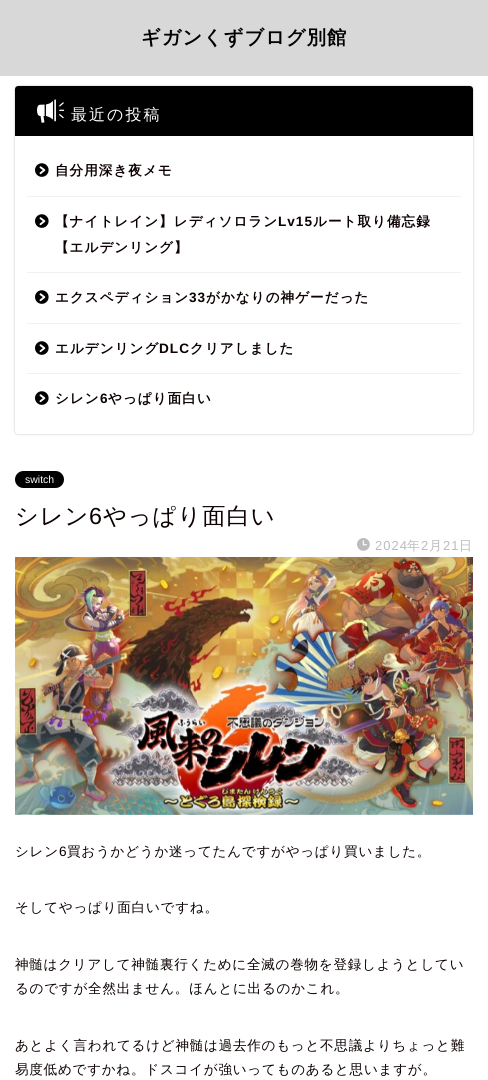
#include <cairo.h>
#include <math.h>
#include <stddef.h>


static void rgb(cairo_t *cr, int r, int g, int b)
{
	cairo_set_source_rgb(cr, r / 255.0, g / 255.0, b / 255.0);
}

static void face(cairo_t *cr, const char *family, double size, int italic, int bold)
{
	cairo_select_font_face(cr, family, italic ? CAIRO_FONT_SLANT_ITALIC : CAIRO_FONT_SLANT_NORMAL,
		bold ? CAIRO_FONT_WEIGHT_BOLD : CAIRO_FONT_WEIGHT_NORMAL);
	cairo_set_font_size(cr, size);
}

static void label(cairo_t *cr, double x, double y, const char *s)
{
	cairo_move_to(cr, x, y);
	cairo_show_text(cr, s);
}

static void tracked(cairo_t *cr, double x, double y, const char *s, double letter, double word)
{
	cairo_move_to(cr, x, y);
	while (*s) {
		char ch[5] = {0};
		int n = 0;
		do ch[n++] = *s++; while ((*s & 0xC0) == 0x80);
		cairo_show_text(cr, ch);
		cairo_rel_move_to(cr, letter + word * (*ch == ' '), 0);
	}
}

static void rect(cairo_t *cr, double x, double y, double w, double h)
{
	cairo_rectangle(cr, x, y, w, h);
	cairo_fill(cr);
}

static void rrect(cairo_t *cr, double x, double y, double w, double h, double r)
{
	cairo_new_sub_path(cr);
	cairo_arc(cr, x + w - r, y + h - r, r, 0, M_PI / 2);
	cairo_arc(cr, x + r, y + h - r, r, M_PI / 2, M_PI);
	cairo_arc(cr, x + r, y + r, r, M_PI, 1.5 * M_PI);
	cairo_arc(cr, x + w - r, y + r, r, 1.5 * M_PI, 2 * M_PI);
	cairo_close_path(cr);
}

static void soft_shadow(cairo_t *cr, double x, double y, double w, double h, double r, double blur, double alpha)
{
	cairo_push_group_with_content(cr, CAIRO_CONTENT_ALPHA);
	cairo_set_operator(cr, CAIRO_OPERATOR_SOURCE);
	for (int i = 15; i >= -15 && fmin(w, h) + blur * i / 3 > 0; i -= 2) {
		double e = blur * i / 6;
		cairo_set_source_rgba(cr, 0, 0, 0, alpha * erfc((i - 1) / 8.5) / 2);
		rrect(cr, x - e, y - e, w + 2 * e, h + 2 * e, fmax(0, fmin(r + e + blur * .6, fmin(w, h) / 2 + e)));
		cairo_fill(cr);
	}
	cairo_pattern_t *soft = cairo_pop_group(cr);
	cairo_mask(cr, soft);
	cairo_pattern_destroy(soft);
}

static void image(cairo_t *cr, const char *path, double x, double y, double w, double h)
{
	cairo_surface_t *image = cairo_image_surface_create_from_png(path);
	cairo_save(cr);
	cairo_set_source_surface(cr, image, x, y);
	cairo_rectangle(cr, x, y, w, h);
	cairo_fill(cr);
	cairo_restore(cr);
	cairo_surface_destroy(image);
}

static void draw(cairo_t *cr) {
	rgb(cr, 255, 255, 255);
	cairo_paint(cr);
	rgb(cr, 216, 216, 216);
	rect(cr, 0, 0, 488, 76);
	face(cr, "WenQuanYi Zen Hei", 19.25, 0, 1);
	rgb(cr, 0, 0, 0);
	tracked(cr, 141, 44, "ギガンくずブログ別館", 1, 0);
	rgb(cr, 0, 0, 0);
	soft_shadow(cr, 15, 86, 458, 348, 3, 1, 0.25);
	rgb(cr, 255, 255, 255);
	rrect(cr, 15, 86, 458, 348, 3);
	cairo_fill(cr);
	rgb(cr, 0, 0, 0);
	cairo_new_path(cr);
	cairo_move_to(cr, 18, 86);
	cairo_line_to(cr, 470, 86);
	cairo_curve_to(cr, 471.5, 86, 473, 87.5, 473, 89);
	cairo_line_to(cr, 473, 136);
	cairo_line_to(cr, 15, 136);
	cairo_line_to(cr, 15, 89);
	cairo_curve_to(cr, 15, 87.5, 16.5, 86, 18, 86);
	cairo_close_path(cr);
	cairo_fill(cr);
	image(cr, "image0.png", 37, 99, 28, 24);
	face(cr, "WenQuanYi Zen Hei Medium", 16, 0, 0);
	rgb(cr, 255, 255, 255);
	tracked(cr, 71, 120, "最近の投稿", 2, 0);
	rgb(cr, 242, 242, 242);
	rect(cr, 27, 196, 434, 1);
	image(cr, "image1.png", 35, 163, 14, 14);
	face(cr, "WenQuanYi Zen Hei", 13.6, 0, 1);
	rgb(cr, 12, 0, 0);
	tracked(cr, 55, 175, "自分用深き夜メモ", 1, 0);
	rgb(cr, 242, 242, 242);
	rect(cr, 27, 272, 434, 1);
	image(cr, "image1.png", 35, 214, 14, 14);
	rgb(cr, 12, 0, 0);
	tracked(cr, 55, 226, "【ナイトレイン】レディソロラン", 1, 0);
	face(cr, "Liberation Sans", 13.6, 0, 1);
	tracked(cr, 278, 226, "Lv15", 1, 0);
	face(cr, "WenQuanYi Zen Hei", 13.6, 0, 1);
	tracked(cr, 313, 226, "ルート取り備忘録", 1, 0);
	tracked(cr, 55, 252, "【エルデンリング】", 1, 0);
	rgb(cr, 242, 242, 242);
	rect(cr, 27, 323, 434, 1);
	image(cr, "image1.png", 35, 290, 14, 14);
	rgb(cr, 12, 0, 0);
	tracked(cr, 55, 302, "エクスペディション", 1, 0);
	face(cr, "Liberation Sans", 13.6, 0, 1);
	tracked(cr, 189, 302, "33", 1, 0);
	face(cr, "WenQuanYi Zen Hei", 13.6, 0, 1);
	tracked(cr, 206, 302, "がかなりの神ゲーだった", 1, 0);
	rgb(cr, 242, 242, 242);
	rect(cr, 27, 373, 434, 1);
	image(cr, "image1.png", 35, 341, 14, 14);
	rgb(cr, 12, 0, 0);
	tracked(cr, 55, 353, "エルデンリング", 1, 0);
	face(cr, "Liberation Sans", 13.6, 0, 1);
	tracked(cr, 159, 353, "DLC", 1, 0);
	face(cr, "WenQuanYi Zen Hei", 13.6, 0, 1);
	tracked(cr, 190, 353, "クリアしました", 1, 0);
	image(cr, "image1.png", 35, 391, 14, 14);
	tracked(cr, 55, 403, "シレン", 1, 0);
	face(cr, "Liberation Sans", 13.6, 0, 1);
	tracked(cr, 100, 403, "6", 1, 0);
	face(cr, "WenQuanYi Zen Hei", 13.6, 0, 1);
	tracked(cr, 108, 403, "やっぱり面白い", 1, 0);
	rgb(cr, 0, 0, 0);
	rrect(cr, 15, 471, 49, 17, 8.5);
	cairo_fill(cr);
	face(cr, "Liberation Sans", 10.5, 0, 0);
	rgb(cr, 255, 255, 255);
	label(cr, 25, 483, "switch");
	face(cr, "WenQuanYi Zen Hei Medium", 23.25, 0, 0);
	rgb(cr, 12, 0, 0);
	tracked(cr, 15, 524, "シレン", 1, 0);
	face(cr, "Liberation Sans", 23.25, 0, 0);
	tracked(cr, 89, 524, "6", 1, 0);
	face(cr, "WenQuanYi Zen Hei Medium", 23.25, 0, 0);
	tracked(cr, 103, 524, "やっぱり面白い", 1, 0);
	image(cr, "image2.png", 357, 538, 13, 13);
	face(cr, "Liberation Sans", 13, 0, 0);
	rgb(cr, 187, 187, 187);
	tracked(cr, 375, 550, "2024", 1, 0);
	face(cr, "WenQuanYi Zen Hei Medium", 13, 0, 0);
	tracked(cr, 407, 550, "年", 1, 0);
	face(cr, "Liberation Sans", 13, 0, 0);
	tracked(cr, 421, 550, "2", 1, 0);
	face(cr, "WenQuanYi Zen Hei Medium", 13, 0, 0);
	tracked(cr, 429, 550, "月", 1, 0);
	face(cr, "Liberation Sans", 13, 0, 0);
	tracked(cr, 443, 550, "21", 1, 0);
	face(cr, "WenQuanYi Zen Hei Medium", 13, 0, 0);
	tracked(cr, 459, 550, "日", 1, 0);
	image(cr, "image3.png", 15, 557, 458, 258);
	face(cr, "WenQuanYi Zen Hei Medium", 13.6, 0, 0);
	rgb(cr, 12, 0, 0);
	tracked(cr, 15, 856, "シレン", 0.7, 0);
	face(cr, "Liberation Sans", 13.6, 0, 0);
	tracked(cr, 59, 856, "6", 0.7, 0);
	face(cr, "WenQuanYi Zen Hei Medium", 13.6, 0, 0);
	tracked(cr, 67, 856, "買おうかどうか迷ってたんですがやっぱり買いました。", 0.7, 0);
	tracked(cr, 15, 912, "そしてやっぱり面白いですね。", 0.7, 0);
	tracked(cr, 15, 969, "神髄はクリアして神髄裏行くために全滅の巻物を登録しようとしてい", 0.7, 0);
	tracked(cr, 15, 993, "るのですが全然出ません。ほんとに出るのかこれ。", 0.7, 0);
	tracked(cr, 15, 1050, "あとよく言われてるけど神髄は過去作のもっと不思議よりちょっと難", 0.7, 0);
	tracked(cr, 15, 1074, "易度低めですかね。ドスコイが強いってものあると思いますが。", 0.7, 0);
}

int main(void) {
	cairo_surface_t *surface = cairo_image_surface_create(CAIRO_FORMAT_RGB24, 488, 1080);
	cairo_t *cr = cairo_create(surface);
	cairo_font_options_t *options = cairo_font_options_create();
	cairo_font_options_set_hint_metrics(options, CAIRO_HINT_METRICS_OFF);
	cairo_font_options_set_hint_style(options, CAIRO_HINT_STYLE_NONE);
	cairo_set_font_options(cr, options);
	cairo_set_miter_limit(cr, 4);
	draw(cr);
	cairo_surface_write_to_png(surface, "render.png");
	cairo_font_options_destroy(options);
	cairo_destroy(cr);
	cairo_surface_destroy(surface);
	return 0;
}
